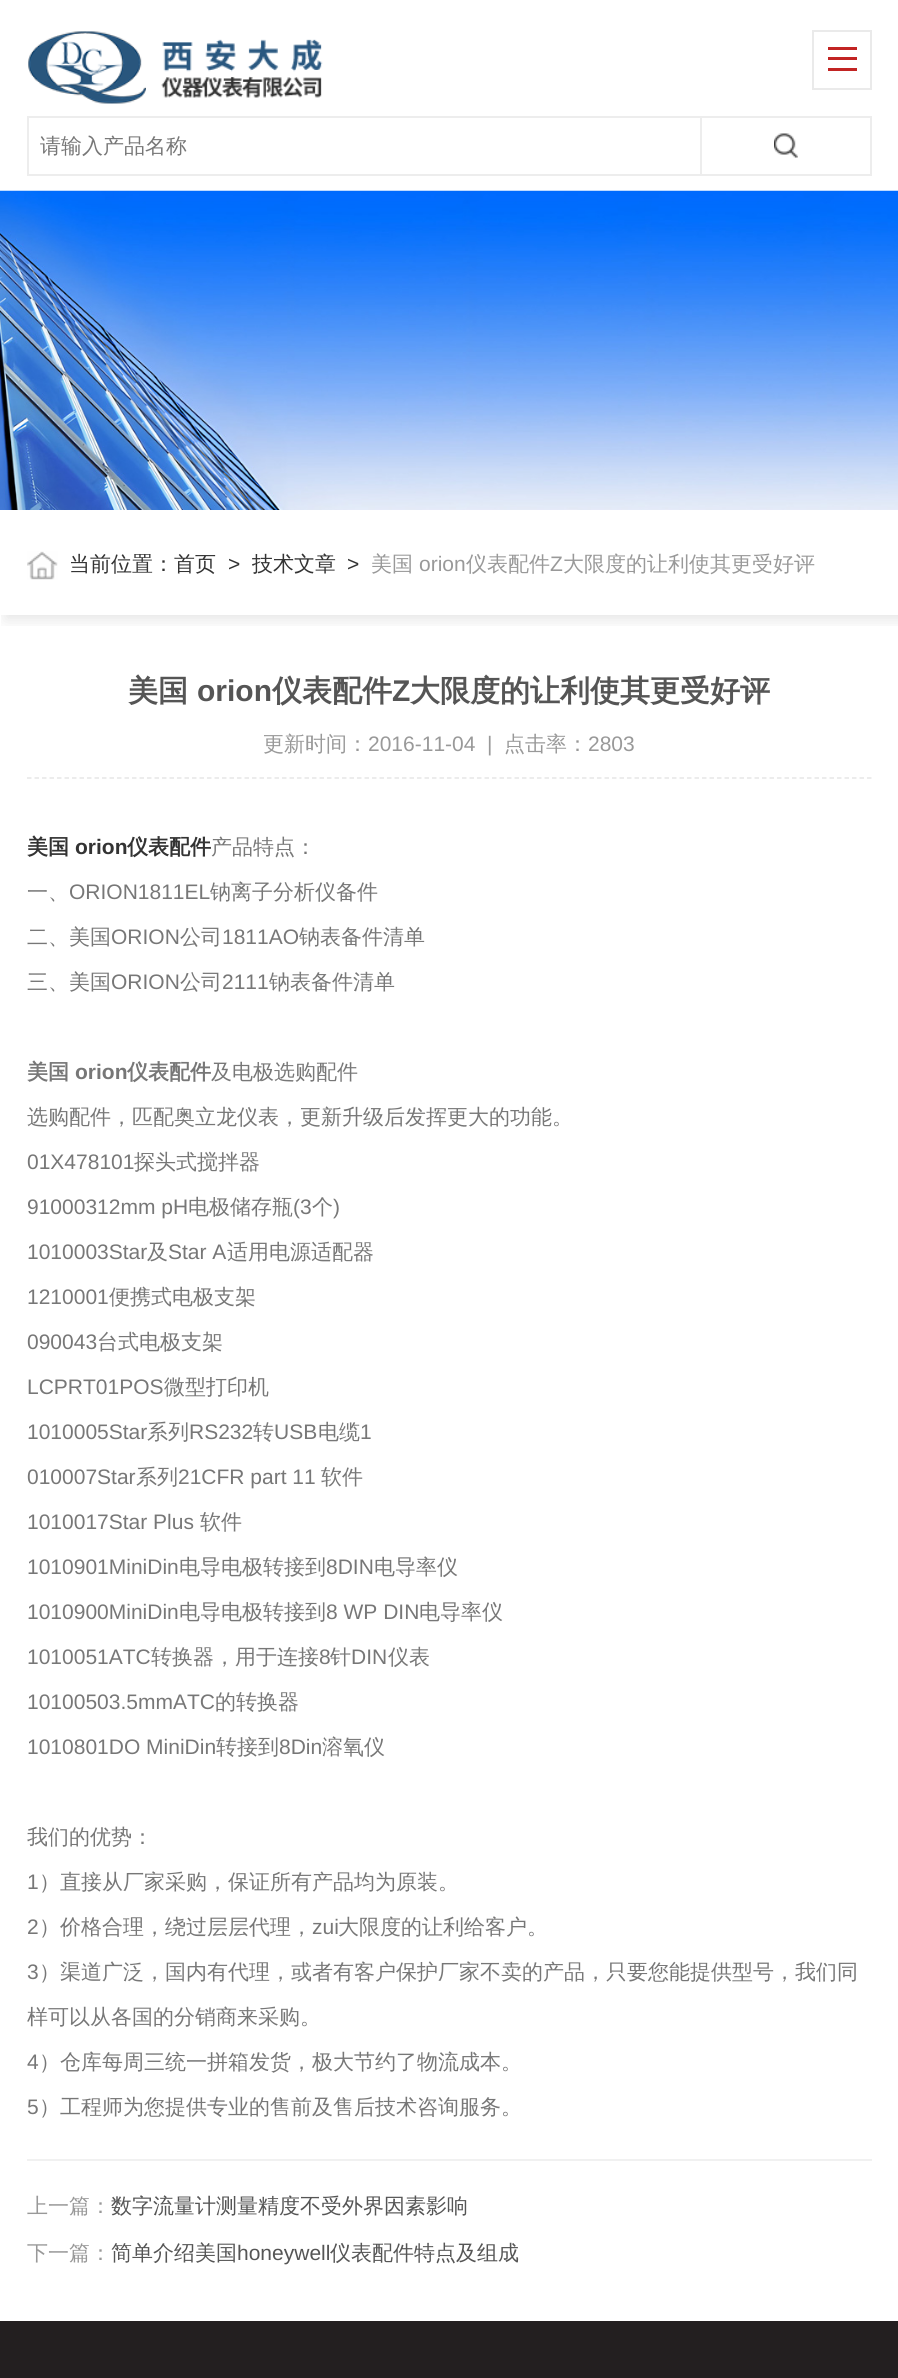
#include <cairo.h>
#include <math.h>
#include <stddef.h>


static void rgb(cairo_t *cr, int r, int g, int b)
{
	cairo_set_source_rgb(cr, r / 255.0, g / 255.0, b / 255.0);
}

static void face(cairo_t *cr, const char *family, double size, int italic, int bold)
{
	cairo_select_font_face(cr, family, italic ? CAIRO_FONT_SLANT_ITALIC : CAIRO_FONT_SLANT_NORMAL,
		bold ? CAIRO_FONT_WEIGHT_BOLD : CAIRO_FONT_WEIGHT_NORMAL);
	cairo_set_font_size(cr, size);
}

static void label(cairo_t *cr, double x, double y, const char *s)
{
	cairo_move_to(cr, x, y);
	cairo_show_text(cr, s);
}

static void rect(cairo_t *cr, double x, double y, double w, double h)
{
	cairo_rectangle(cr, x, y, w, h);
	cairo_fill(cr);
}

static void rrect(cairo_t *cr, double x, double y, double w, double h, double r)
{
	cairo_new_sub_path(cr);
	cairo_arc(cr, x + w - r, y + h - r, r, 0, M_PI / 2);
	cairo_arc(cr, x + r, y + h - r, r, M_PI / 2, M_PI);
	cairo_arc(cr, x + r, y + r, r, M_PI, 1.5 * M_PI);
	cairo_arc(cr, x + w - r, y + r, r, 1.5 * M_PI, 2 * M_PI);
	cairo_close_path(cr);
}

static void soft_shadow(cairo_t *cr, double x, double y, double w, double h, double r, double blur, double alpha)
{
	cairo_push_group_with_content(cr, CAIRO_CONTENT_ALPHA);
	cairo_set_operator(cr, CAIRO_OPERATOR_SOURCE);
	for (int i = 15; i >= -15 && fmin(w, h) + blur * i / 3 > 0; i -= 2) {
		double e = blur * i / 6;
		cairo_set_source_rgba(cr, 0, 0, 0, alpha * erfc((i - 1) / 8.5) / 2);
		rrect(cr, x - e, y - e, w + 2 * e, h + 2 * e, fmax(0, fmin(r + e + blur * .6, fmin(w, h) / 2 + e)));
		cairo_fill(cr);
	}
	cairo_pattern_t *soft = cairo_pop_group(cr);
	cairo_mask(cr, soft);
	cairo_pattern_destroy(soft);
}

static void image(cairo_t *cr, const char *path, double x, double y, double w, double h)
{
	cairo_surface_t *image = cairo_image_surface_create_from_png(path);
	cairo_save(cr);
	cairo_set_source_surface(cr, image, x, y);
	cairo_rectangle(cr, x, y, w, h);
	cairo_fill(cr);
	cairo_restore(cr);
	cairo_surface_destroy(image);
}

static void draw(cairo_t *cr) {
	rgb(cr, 255, 255, 255);
	cairo_paint(cr);
	image(cr, "image0.png", 28, 31, 295, 73);
	cairo_rectangle(cr, 813, 31, 58, 58);
	rgb(cr, 234, 234, 234);
	cairo_stroke(cr);
	rgb(cr, 194, 36, 35);
	rect(cr, 828, 47, 29, 3);
	rect(cr, 828, 57, 29, 3);
	rect(cr, 828, 68, 29, 3);
	cairo_rectangle(cr, 28, 117, 673, 58);
	rgb(cr, 237, 237, 237);
	cairo_stroke(cr);
	face(cr, "WenQuanYi Zen Hei Medium", 21, 0, 0);
	rgb(cr, 119, 119, 119);
	label(cr, 40, 153, "请输入产品名称");
	image(cr, "image1.png", 774, 133, 24, 25);
	rgb(cr, 237, 237, 237);
	rect(cr, 702, 116, 170, 2);
	rect(cr, 870, 116, 2, 60);
	rect(cr, 702, 174, 170, 2);
	cairo_save(cr);
	cairo_rectangle(cr, 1, 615, 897, 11);
	cairo_clip(cr);
	rgb(cr, 0, 0, 0);
	soft_shadow(cr, 5, 515, 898, 105, 0, 7.5, 0.1);
	cairo_restore(cr);
	image(cr, "image2.png", 0, 190, 898, 320);
	image(cr, "image3.png", 27, 551, 31, 29);
	rgb(cr, 51, 51, 51);
	label(cr, 69, 571, "当前位置：首页");
	face(cr, "Liberation Sans", 21, 0, 0);
	label(cr, 228, 571, ">");
	face(cr, "WenQuanYi Zen Hei Medium", 21, 0, 0);
	label(cr, 252, 571, "技术文章");
	face(cr, "Liberation Sans", 21, 0, 0);
	label(cr, 347, 571, ">");
	face(cr, "WenQuanYi Zen Hei Medium", 21, 0, 0);
	rgb(cr, 153, 153, 153);
	label(cr, 371, 571, "美国");
	face(cr, "Liberation Sans", 21, 0, 0);
	label(cr, 419, 571, "orion");
	face(cr, "WenQuanYi Zen Hei Medium", 21, 0, 0);
	label(cr, 466, 571, "仪表配件");
	face(cr, "Liberation Sans", 21, 0, 0);
	label(cr, 550, 571, "Z");
	face(cr, "WenQuanYi Zen Hei Medium", 21, 0, 0);
	label(cr, 563, 571, "大限度的让利使其更受好评");
	face(cr, "WenQuanYi Zen Hei", 30, 0, 1);
	rgb(cr, 85, 85, 85);
	label(cr, 128, 701, "美国");
	face(cr, "Liberation Sans", 30, 0, 1);
	label(cr, 197, 701, "orion");
	face(cr, "WenQuanYi Zen Hei", 30, 0, 1);
	label(cr, 272, 701, "仪表配件");
	face(cr, "Liberation Sans", 30, 0, 1);
	label(cr, 392, 701, "Z");
	face(cr, "WenQuanYi Zen Hei", 30, 0, 1);
	label(cr, 410, 701, "大限度的让利使其更受好评");
	cairo_new_path(cr);
	cairo_move_to(cr, 27, 778);
	cairo_line_to(cr, 871.5, 778);
	rgb(cr, 230, 230, 230);
	cairo_set_line_width(cr, 1.5);
	cairo_set_dash(cr, (double[]){4.5, 3}, 2, 0);
	cairo_stroke(cr);
	face(cr, "WenQuanYi Zen Hei Medium", 21, 0, 0);
	rgb(cr, 153, 153, 153);
	label(cr, 263, 751, "更新时间：");
	face(cr, "Liberation Sans", 21, 0, 0);
	label(cr, 368, 751, "2016-11-04  |");
	face(cr, "WenQuanYi Zen Hei Medium", 21, 0, 0);
	label(cr, 504, 751, "点击率：");
	face(cr, "Liberation Sans", 21, 0, 0);
	label(cr, 588, 751, "2803");
	face(cr, "WenQuanYi Zen Hei", 21, 0, 1);
	rgb(cr, 51, 51, 51);
	label(cr, 27, 854, "美国");
	face(cr, "Liberation Sans", 21, 0, 1);
	label(cr, 75, 854, "orion");
	face(cr, "WenQuanYi Zen Hei", 21, 0, 1);
	label(cr, 127, 854, "仪表配件");
	face(cr, "WenQuanYi Zen Hei Medium", 21, 0, 0);
	rgb(cr, 119, 119, 119);
	label(cr, 211, 854, "产品特点：");
	label(cr, 27, 899, "一、");
	face(cr, "Liberation Sans", 21, 0, 0);
	label(cr, 69, 899, "ORION1811EL");
	face(cr, "WenQuanYi Zen Hei Medium", 21, 0, 0);
	label(cr, 210, 899, "钠离子分析仪备件");
	label(cr, 27, 944, "二、美国");
	face(cr, "Liberation Sans", 21, 0, 0);
	label(cr, 111, 944, "ORION");
	face(cr, "WenQuanYi Zen Hei Medium", 21, 0, 0);
	label(cr, 180, 944, "公司");
	face(cr, "Liberation Sans", 21, 0, 0);
	label(cr, 222, 944, "1811AO");
	face(cr, "WenQuanYi Zen Hei Medium", 21, 0, 0);
	label(cr, 299, 944, "钠表备件清单");
	label(cr, 27, 989, "三、美国");
	face(cr, "Liberation Sans", 21, 0, 0);
	label(cr, 111, 989, "ORION");
	face(cr, "WenQuanYi Zen Hei Medium", 21, 0, 0);
	label(cr, 180, 989, "公司");
	face(cr, "Liberation Sans", 21, 0, 0);
	label(cr, 222, 989, "2111");
	face(cr, "WenQuanYi Zen Hei Medium", 21, 0, 0);
	label(cr, 269, 989, "钠表备件清单");
	face(cr, "WenQuanYi Zen Hei", 21, 0, 1);
	label(cr, 27, 1079, "美国");
	face(cr, "Liberation Sans", 21, 0, 1);
	label(cr, 75, 1079, "orion");
	face(cr, "WenQuanYi Zen Hei", 21, 0, 1);
	label(cr, 127, 1079, "仪表配件");
	face(cr, "WenQuanYi Zen Hei Medium", 21, 0, 0);
	label(cr, 211, 1079, "及电极选购配件");
	label(cr, 27, 1124, "选购配件，匹配奥立龙仪表，更新升级后发挥更大的功能。");
	face(cr, "Liberation Sans", 21, 0, 0);
	label(cr, 27, 1169, "01X478101");
	face(cr, "WenQuanYi Zen Hei Medium", 21, 0, 0);
	label(cr, 134, 1169, "探头式搅拌器");
	face(cr, "Liberation Sans", 21, 0, 0);
	label(cr, 27, 1214, "91000312mm pH");
	face(cr, "WenQuanYi Zen Hei Medium", 21, 0, 0);
	label(cr, 188, 1214, "电极储存瓶");
	face(cr, "Liberation Sans", 21, 0, 0);
	label(cr, 293, 1214, "(3");
	face(cr, "WenQuanYi Zen Hei Medium", 21, 0, 0);
	label(cr, 312, 1214, "个");
	face(cr, "Liberation Sans", 21, 0, 0);
	label(cr, 333, 1214, ")");
	label(cr, 27, 1259, "1010003Star");
	face(cr, "WenQuanYi Zen Hei Medium", 21, 0, 0);
	label(cr, 147, 1259, "及");
	face(cr, "Liberation Sans", 21, 0, 0);
	label(cr, 168, 1259, "Star A");
	face(cr, "WenQuanYi Zen Hei Medium", 21, 0, 0);
	label(cr, 227, 1259, "适用电源适配器");
	face(cr, "Liberation Sans", 21, 0, 0);
	label(cr, 27, 1304, "1210001");
	face(cr, "WenQuanYi Zen Hei Medium", 21, 0, 0);
	label(cr, 109, 1304, "便携式电极支架");
	face(cr, "Liberation Sans", 21, 0, 0);
	label(cr, 27, 1349, "090043");
	face(cr, "WenQuanYi Zen Hei Medium", 21, 0, 0);
	label(cr, 97, 1349, "台式电极支架");
	face(cr, "Liberation Sans", 21, 0, 0);
	label(cr, 27, 1394, "LCPRT01POS");
	face(cr, "WenQuanYi Zen Hei Medium", 21, 0, 0);
	label(cr, 164, 1394, "微型打印机");
	face(cr, "Liberation Sans", 21, 0, 0);
	label(cr, 27, 1439, "1010005Star");
	face(cr, "WenQuanYi Zen Hei Medium", 21, 0, 0);
	label(cr, 147, 1439, "系列");
	face(cr, "Liberation Sans", 21, 0, 0);
	label(cr, 189, 1439, "RS232");
	face(cr, "WenQuanYi Zen Hei Medium", 21, 0, 0);
	label(cr, 253, 1439, "转");
	face(cr, "Liberation Sans", 21, 0, 0);
	label(cr, 274, 1439, "USB");
	face(cr, "WenQuanYi Zen Hei Medium", 21, 0, 0);
	label(cr, 318, 1439, "电缆");
	face(cr, "Liberation Sans", 21, 0, 0);
	label(cr, 360, 1439, "1");
	label(cr, 27, 1484, "010007Star");
	face(cr, "WenQuanYi Zen Hei Medium", 21, 0, 0);
	label(cr, 136, 1484, "系列");
	face(cr, "Liberation Sans", 21, 0, 0);
	label(cr, 178, 1484, "21CFR part 11");
	face(cr, "WenQuanYi Zen Hei Medium", 21, 0, 0);
	label(cr, 321, 1484, "软件");
	face(cr, "Liberation Sans", 21, 0, 0);
	label(cr, 27, 1529, "1010017Star Plus");
	face(cr, "WenQuanYi Zen Hei Medium", 21, 0, 0);
	label(cr, 200, 1529, "软件");
	face(cr, "Liberation Sans", 21, 0, 0);
	label(cr, 27, 1574, "1010901MiniDin");
	face(cr, "WenQuanYi Zen Hei Medium", 21, 0, 0);
	label(cr, 179, 1574, "电导电极转接到");
	face(cr, "Liberation Sans", 21, 0, 0);
	label(cr, 326, 1574, "8DIN");
	face(cr, "WenQuanYi Zen Hei Medium", 21, 0, 0);
	label(cr, 374, 1574, "电导率仪");
	face(cr, "Liberation Sans", 21, 0, 0);
	label(cr, 27, 1619, "1010900MiniDin");
	face(cr, "WenQuanYi Zen Hei Medium", 21, 0, 0);
	label(cr, 179, 1619, "电导电极转接到");
	face(cr, "Liberation Sans", 21, 0, 0);
	label(cr, 326, 1619, "8 WP DIN");
	face(cr, "WenQuanYi Zen Hei Medium", 21, 0, 0);
	label(cr, 419, 1619, "电导率仪");
	face(cr, "Liberation Sans", 21, 0, 0);
	label(cr, 27, 1664, "1010051ATC");
	face(cr, "WenQuanYi Zen Hei Medium", 21, 0, 0);
	label(cr, 151, 1664, "转换器，用于连接");
	face(cr, "Liberation Sans", 21, 0, 0);
	label(cr, 319, 1664, "8");
	face(cr, "WenQuanYi Zen Hei Medium", 21, 0, 0);
	label(cr, 330, 1664, "针");
	face(cr, "Liberation Sans", 21, 0, 0);
	label(cr, 351, 1664, "DIN");
	face(cr, "WenQuanYi Zen Hei Medium", 21, 0, 0);
	label(cr, 388, 1664, "仪表");
	face(cr, "Liberation Sans", 21, 0, 0);
	label(cr, 27, 1709, "10100503.5mmATC");
	face(cr, "WenQuanYi Zen Hei Medium", 21, 0, 0);
	label(cr, 215, 1709, "的转换器");
	face(cr, "Liberation Sans", 21, 0, 0);
	label(cr, 27, 1754, "1010801DO MiniDin");
	face(cr, "WenQuanYi Zen Hei Medium", 21, 0, 0);
	label(cr, 216, 1754, "转接到");
	face(cr, "Liberation Sans", 21, 0, 0);
	label(cr, 279, 1754, "8Din");
	face(cr, "WenQuanYi Zen Hei Medium", 21, 0, 0);
	label(cr, 322, 1754, "溶氧仪");
	label(cr, 27, 1844, "我们的优势：");
	face(cr, "Liberation Sans", 21, 0, 0);
	label(cr, 27, 1889, "1");
	face(cr, "WenQuanYi Zen Hei Medium", 21, 0, 0);
	label(cr, 39, 1889, "）直接从厂家采购，保证所有产品均为原装。");
	face(cr, "Liberation Sans", 21, 0, 0);
	label(cr, 27, 1934, "2");
	face(cr, "WenQuanYi Zen Hei Medium", 21, 0, 0);
	label(cr, 39, 1934, "）价格合理，绕过层层代理，");
	face(cr, "Liberation Sans", 21, 0, 0);
	label(cr, 312, 1934, "zui");
	face(cr, "WenQuanYi Zen Hei Medium", 21, 0, 0);
	label(cr, 338, 1934, "大限度的让利给客户。");
	face(cr, "Liberation Sans", 21, 0, 0);
	label(cr, 27, 1979, "3");
	face(cr, "WenQuanYi Zen Hei Medium", 21, 0, 0);
	label(cr, 39, 1979, "）渠道广泛，国内有代理，或者有客户保护厂家不卖的产品，只要您能提供型号，我们同");
	label(cr, 27, 2024, "样可以从各国的分销商来采购。");
	face(cr, "Liberation Sans", 21, 0, 0);
	label(cr, 27, 2069, "4");
	face(cr, "WenQuanYi Zen Hei Medium", 21, 0, 0);
	label(cr, 39, 2069, "）仓库每周三统一拼箱发货，极大节约了物流成本。");
	face(cr, "Liberation Sans", 21, 0, 0);
	label(cr, 27, 2114, "5");
	face(cr, "WenQuanYi Zen Hei Medium", 21, 0, 0);
	label(cr, 39, 2114, "）工程师为您提供专业的售前及售后技术咨询服务。");
	rgb(cr, 241, 241, 241);
	rect(cr, 27, 2159, 845, 2);
	rgb(cr, 153, 153, 153);
	label(cr, 27, 2213, "上一篇：");
	rgb(cr, 85, 85, 85);
	label(cr, 111, 2213, "数字流量计测量精度不受外界因素影响");
	rgb(cr, 153, 153, 153);
	label(cr, 27, 2260, "下一篇：");
	rgb(cr, 85, 85, 85);
	label(cr, 111, 2260, "简单介绍美国");
	face(cr, "Liberation Sans", 21, 0, 0);
	label(cr, 237, 2260, "honeywell");
	face(cr, "WenQuanYi Zen Hei Medium", 21, 0, 0);
	label(cr, 330, 2260, "仪表配件特点及组成");
	rgb(cr, 35, 31, 32);
	rect(cr, 0, 2321, 898, 57);
}

int main(void) {
	cairo_surface_t *surface = cairo_image_surface_create(CAIRO_FORMAT_RGB24, 898, 2378);
	cairo_t *cr = cairo_create(surface);
	cairo_font_options_t *options = cairo_font_options_create();
	cairo_font_options_set_hint_metrics(options, CAIRO_HINT_METRICS_OFF);
	cairo_font_options_set_hint_style(options, CAIRO_HINT_STYLE_NONE);
	cairo_set_font_options(cr, options);
	cairo_set_miter_limit(cr, 4);
	draw(cr);
	cairo_surface_write_to_png(surface, "render.png");
	cairo_font_options_destroy(options);
	cairo_destroy(cr);
	cairo_surface_destroy(surface);
	return 0;
}
